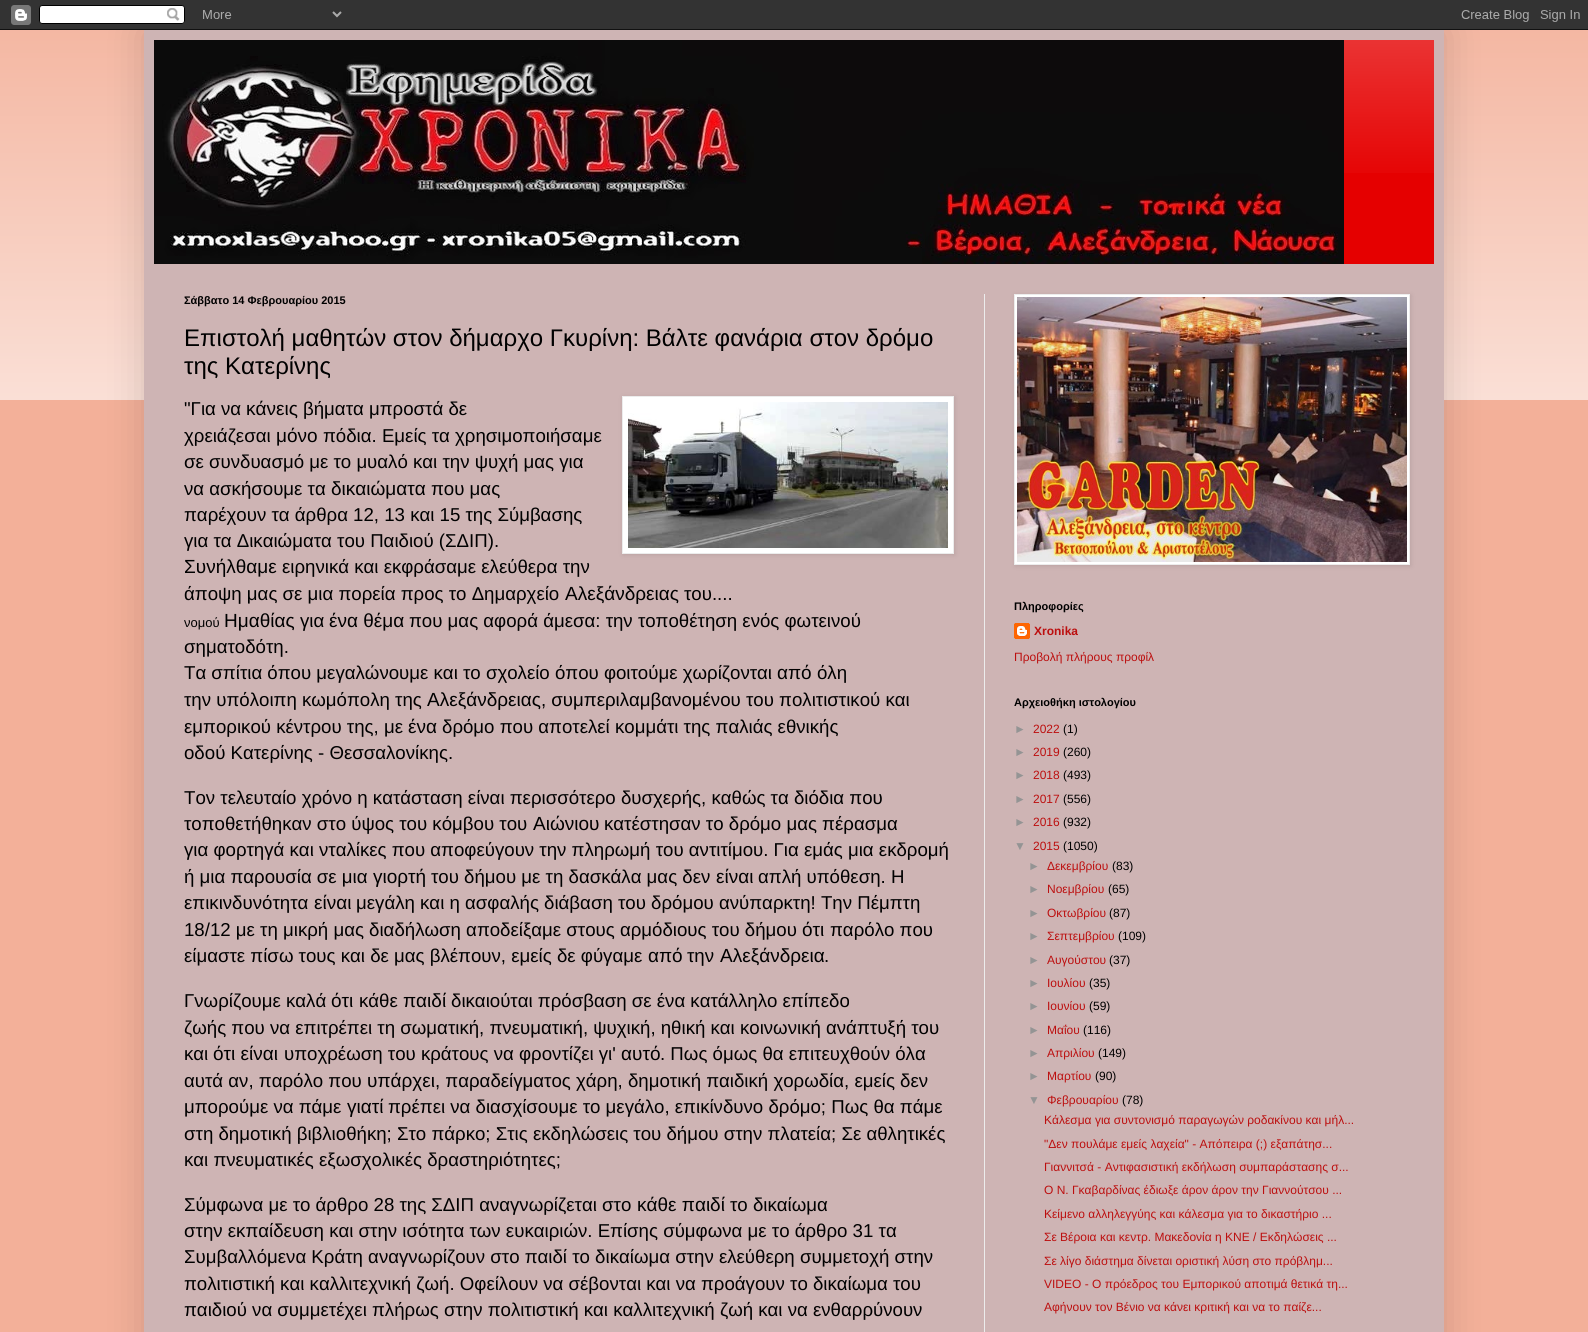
#include <cairo.h>
#include <math.h>
#include <stddef.h>


static void rgb(cairo_t *cr, int r, int g, int b)
{
	cairo_set_source_rgb(cr, r / 255.0, g / 255.0, b / 255.0);
}

static void face(cairo_t *cr, const char *family, double size, int italic, int bold)
{
	cairo_select_font_face(cr, family, italic ? CAIRO_FONT_SLANT_ITALIC : CAIRO_FONT_SLANT_NORMAL,
		bold ? CAIRO_FONT_WEIGHT_BOLD : CAIRO_FONT_WEIGHT_NORMAL);
	cairo_set_font_size(cr, size);
}

static void label(cairo_t *cr, double x, double y, const char *s)
{
	cairo_move_to(cr, x, y);
	cairo_show_text(cr, s);
}

static void rect(cairo_t *cr, double x, double y, double w, double h)
{
	cairo_rectangle(cr, x, y, w, h);
	cairo_fill(cr);
}

static void rrect(cairo_t *cr, double x, double y, double w, double h, double r)
{
	cairo_new_sub_path(cr);
	cairo_arc(cr, x + w - r, y + h - r, r, 0, M_PI / 2);
	cairo_arc(cr, x + r, y + h - r, r, M_PI / 2, M_PI);
	cairo_arc(cr, x + r, y + r, r, M_PI, 1.5 * M_PI);
	cairo_arc(cr, x + w - r, y + r, r, 1.5 * M_PI, 2 * M_PI);
	cairo_close_path(cr);
}

static void soft_shadow(cairo_t *cr, double x, double y, double w, double h, double r, double blur, double alpha)
{
	cairo_push_group_with_content(cr, CAIRO_CONTENT_ALPHA);
	cairo_set_operator(cr, CAIRO_OPERATOR_SOURCE);
	for (int i = 15; i >= -15 && fmin(w, h) + blur * i / 3 > 0; i -= 2) {
		double e = blur * i / 6;
		cairo_set_source_rgba(cr, 0, 0, 0, alpha * erfc((i - 1) / 8.5) / 2);
		rrect(cr, x - e, y - e, w + 2 * e, h + 2 * e, fmax(0, fmin(r + e + blur * .6, fmin(w, h) / 2 + e)));
		cairo_fill(cr);
	}
	cairo_pattern_t *soft = cairo_pop_group(cr);
	cairo_mask(cr, soft);
	cairo_pattern_destroy(soft);
}

static void image(cairo_t *cr, const char *path, double x, double y, double w, double h)
{
	cairo_surface_t *image = cairo_image_surface_create_from_png(path);
	cairo_save(cr);
	cairo_set_source_surface(cr, image, x, y);
	cairo_rectangle(cr, x, y, w, h);
	cairo_fill(cr);
	cairo_restore(cr);
	cairo_surface_destroy(image);
}

static void draw(cairo_t *cr) {
	rgb(cr, 243, 176, 153);
	cairo_paint(cr);
	image(cr, "image1.png", 0, 30, 1588, 370);
	rgb(cr, 0, 0, 0);
	soft_shadow(cr, 144, 30, 1300, 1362, 0, 20, 0.15);
	image(cr, "image0.png", 0, 0, 1588, 30);
	rgb(cr, 206, 180, 180);
	rect(cr, 144, 30, 1300, 1302);
	rgb(cr, 229, 0, 0);
	rect(cr, 1344, 40, 90, 224);
	image(cr, "image2.png", 1344, 40, 90, 133);
	image(cr, "image3.png", 154, 40, 1190, 224);
	rgb(cr, 236, 236, 236);
	rect(cr, 984, 294, 1, 1038);
	face(cr, "Liberation Sans", 11, 0, 1);
	rgb(cr, 0, 0, 0);
	label(cr, 184, 304, "Σάββατο 14 Φεβρουαρίου 2015");
	face(cr, "Liberation Sans", 24, 0, 0);
	label(cr, 184, 346, "Επιστολή μαθητών στον δήμαρχο Γκυρίνη: Βάλτε φανάρια στον δρόμο");
	label(cr, 184, 374, "της Κατερίνης");
	face(cr, "Liberation Sans", 18.65, 0, 0);
	label(cr, 184, 415, "\"Για να");
	face(cr, "Liberation Sans", 19, 0, 0);
	label(cr, 246, 415, "κάνεις");
	face(cr, "Liberation Sans", 18.65, 0, 0);
	label(cr, 303, 415, "βήματα μπροστά δε");
	rgb(cr, 0, 0, 0);
	soft_shadow(cr, 623, 397, 332, 158, 0, 2.5, 0.1);
	rgb(cr, 255, 255, 255);
	cairo_rectangle(cr, 622.5, 396.5, 331, 157);
	cairo_fill_preserve(cr);
	rgb(cr, 236, 236, 236);
	cairo_set_line_width(cr, 1);
	cairo_stroke(cr);
	image(cr, "image4.png", 628, 402, 320, 146);
	rgb(cr, 0, 0, 0);
	label(cr, 184, 442, "χρειάζεσαι");
	face(cr, "Liberation Sans", 19, 0, 0);
	label(cr, 276, 442, "μόνο");
	face(cr, "Liberation Sans", 18.65, 0, 0);
	label(cr, 323, 442, "πόδια. Εμείς τα χρησιμοποιήσαμε");
	label(cr, 184, 468, "σε συνδυασμό με το μυαλό και την ψυχή μας για");
	label(cr, 184, 495, "να ασκήσουμε τα");
	face(cr, "Liberation Sans", 19, 0, 0);
	label(cr, 331, 495, "δικαιώματα");
	face(cr, "Liberation Sans", 18.65, 0, 0);
	label(cr, 431, 495, "που μας");
	label(cr, 184, 521, "παρέχουν τα άρθρα 12, 13 και 15 της Σύμβασης");
	label(cr, 184, 547, "για τα Δικαιώματα του Παιδιού (ΣΔΙΠ).");
	face(cr, "Liberation Sans", 19, 0, 0);
	label(cr, 184, 573, "Συνήλθαμε");
	face(cr, "Liberation Sans", 18.65, 0, 0);
	label(cr, 282, 573, "ειρηνικά και εκφράσαμε ελεύθερα την");
	label(cr, 184, 600, "άποψη μας σε μια πορεία προς το Δημαρχείο");
	face(cr, "Liberation Sans", 19, 0, 0);
	label(cr, 565, 600, "Αλεξάνδρειας");
	face(cr, "Liberation Sans", 18.65, 0, 0);
	label(cr, 684, 600, "του....");
	face(cr, "Liberation Sans", 13, 0, 0);
	label(cr, 184, 627, "νομού");
	face(cr, "Liberation Sans", 19, 0, 0);
	label(cr, 224, 627, "Ημαθίας");
	face(cr, "Liberation Sans", 18.65, 0, 0);
	label(cr, 300, 627, "για");
	face(cr, "Liberation Sans", 19, 0, 0);
	label(cr, 329, 627, "ένα θέμα");
	face(cr, "Liberation Sans", 18.65, 0, 0);
	label(cr, 409, 627, "που μας αφορά άμεσα: την τοποθέτηση ενός φωτεινού");
	label(cr, 184, 653, "σηματοδότη.");
	label(cr, 184, 679, "Τα σπίτια όπου μεγαλώνουμε και το σχολείο όπου φοιτούμε χωρίζονται");
	face(cr, "Liberation Sans", 19, 0, 0);
	label(cr, 777, 679, "από");
	face(cr, "Liberation Sans", 18.65, 0, 0);
	label(cr, 817, 679, "όλη");
	label(cr, 184, 706, "την υπόλοιπη κωμόπολη της");
	face(cr, "Liberation Sans", 19, 0, 0);
	label(cr, 427, 706, "Αλεξάνδρειας");
	face(cr, "Liberation Sans", 18.65, 0, 0);
	label(cr, 541, 706, ", συμπεριλαμβανομένου του πολιτιστικού και");
	label(cr, 184, 733, "εμπορικού κέντρου της, με");
	face(cr, "Liberation Sans", 19, 0, 0);
	label(cr, 408, 733, "ένα");
	face(cr, "Liberation Sans", 18.65, 0, 0);
	label(cr, 442, 733, "δρόμο που αποτελεί κομμάτι της παλιάς εθνικής");
	label(cr, 184, 759, "οδού Κατερίνης - Θεσσαλονίκης.");
	label(cr, 184, 804, "Τον τελευταίο χρόνο η κατάσταση είναι περισσότερο δυσχερής, καθώς τα διόδια που");
	label(cr, 184, 830, "τοποθετήθηκαν στο ύψος του κόμβου του");
	face(cr, "Liberation Sans", 19, 0, 0);
	label(cr, 533, 830, "Αιώνιου");
	face(cr, "Liberation Sans", 18.65, 0, 0);
	label(cr, 604, 830, "κατέστησαν το δρόμο μας πέρασμα");
	label(cr, 184, 856, "για φορτηγά και νταλίκες που αποφεύγουν την πληρωμή του αντιτίμου. Για εμάς μια εκδρομή");
	label(cr, 184, 883, "ή μια παρουσία σε μια");
	face(cr, "Liberation Sans", 19, 0, 0);
	label(cr, 373, 883, "γιορτή");
	face(cr, "Liberation Sans", 18.65, 0, 0);
	label(cr, 431, 883, "του δήμου με τη δασκάλα μας δεν");
	face(cr, "Liberation Sans", 19, 0, 0);
	label(cr, 716, 883, "είναι");
	face(cr, "Liberation Sans", 18.65, 0, 0);
	label(cr, 758, 883, "απλή υπόθεση. Η");
	label(cr, 184, 909, "επικινδυνότητα");
	face(cr, "Liberation Sans", 19, 0, 0);
	label(cr, 314, 909, "είναι");
	face(cr, "Liberation Sans", 18.65, 0, 0);
	label(cr, 356, 909, "μεγάλη και η ασφαλής διάβαση του δρόμου ανύπαρκτη! Την Πέμπτη");
	label(cr, 184, 936, "18/12 με τη μικρή μας διαδήλωση αποδείξαμε στους αρμόδιους του δήμου");
	face(cr, "Liberation Sans", 19, 0, 0);
	label(cr, 802, 936, "ότι");
	face(cr, "Liberation Sans", 18.65, 0, 0);
	label(cr, 830, 936, "παρόλο που");
	label(cr, 184, 962, "είμαστε πίσω τους και δε μας βλέπουν, εμείς δε φύγαμε");
	face(cr, "Liberation Sans", 19, 0, 0);
	label(cr, 648, 962, "από");
	face(cr, "Liberation Sans", 18.65, 0, 0);
	label(cr, 687, 962, "την");
	face(cr, "Liberation Sans", 19, 0, 0);
	label(cr, 720, 962, "Αλεξάνδρεια");
	face(cr, "Liberation Sans", 18.65, 0, 0);
	label(cr, 824, 962, ".");
	label(cr, 184, 1007, "Γνωρίζουμε καλά");
	face(cr, "Liberation Sans", 19, 0, 0);
	label(cr, 331, 1007, "ότι");
	face(cr, "Liberation Sans", 18.65, 0, 0);
	label(cr, 359, 1007, "κάθε");
	face(cr, "Liberation Sans", 19, 0, 0);
	label(cr, 403, 1007, "παιδί");
	face(cr, "Liberation Sans", 18.65, 0, 0);
	label(cr, 451, 1007, "δικαιούται πρόσβαση σε ένα κατάλληλο επίπεδο");
	label(cr, 184, 1034, "ζωής που να επιτρέπει τη σωματική, πνευματική, ψυχική, ηθική και κοινωνική ανάπτυξή του");
	label(cr, 184, 1060, "και");
	face(cr, "Liberation Sans", 19, 0, 0);
	label(cr, 213, 1060, "ότι είναι");
	face(cr, "Liberation Sans", 18.65, 0, 0);
	label(cr, 284, 1060, "υποχρέωση του κράτους να φροντίζει γι'");
	face(cr, "Liberation Sans", 19, 0, 0);
	label(cr, 621, 1060, "αυτό");
	face(cr, "Liberation Sans", 18.65, 0, 0);
	label(cr, 660, 1060, ". Πως όμως θα επιτευχθούν όλα");
	label(cr, 184, 1087, "αυτά αν, παρόλο που");
	face(cr, "Liberation Sans", 19, 0, 0);
	label(cr, 367, 1087, "υπάρχει");
	face(cr, "Liberation Sans", 18.65, 0, 0);
	label(cr, 435, 1087, ", παραδείγματος χάρη, δημοτική παιδική χορωδία, εμείς δεν");
	label(cr, 184, 1113, "μπορούμε να πάμε");
	face(cr, "Liberation Sans", 19, 0, 0);
	label(cr, 347, 1113, "γιατί");
	face(cr, "Liberation Sans", 18.65, 0, 0);
	label(cr, 388, 1113, "πρέπει να διασχίσουμε το μεγάλο, επικίνδυνο δρόμο; Πως θα πάμε");
	label(cr, 184, 1140, "στη δημοτική βιβλιοθήκη; Στο πάρκο; Στις εκδηλώσεις του δήμου στην πλατεία; Σε αθλητικές");
	label(cr, 184, 1166, "και πνευματικές εξωσχολικές δραστηριότητες;");
	label(cr, 184, 1211, "Σύμφωνα με το άρθρο 28 της ΣΔΙΠ αναγνωρίζεται στο");
	face(cr, "Liberation Sans", 19, 0, 0);
	label(cr, 637, 1211, "κάθε παιδί");
	face(cr, "Liberation Sans", 18.65, 0, 0);
	label(cr, 730, 1211, "το δικαίωμα");
	label(cr, 184, 1237, "στην εκπαίδευση και στην ισότητα των ευκαιριών. Επίσης σύμφωνα με το άρθρο 31 τα");
	label(cr, 184, 1263, "Συμβαλλόμενα Κράτη αναγνωρίζουν στο παιδί το δικαίωμα στην ελεύθερη συμμετοχή στην");
	label(cr, 184, 1290, "πολιτιστική και καλλιτεχνική ζωή. Οφείλουν να σέβονται και να προάγουν το δικαίωμα του");
	label(cr, 184, 1316, "παιδιού να συμμετέχει πλήρως στην πολιτιστική και καλλιτεχνική ζωή και να ενθαρρύνουν");
	rgb(cr, 0, 0, 0);
	soft_shadow(cr, 1015, 295, 396, 271, 0, 2.5, 0.1);
	rgb(cr, 255, 255, 255);
	cairo_rectangle(cr, 1014.5, 294.5, 395, 270);
	cairo_fill_preserve(cr);
	rgb(cr, 236, 236, 236);
	cairo_stroke(cr);
	image(cr, "image5.png", 1017, 297, 390, 265);
	face(cr, "Liberation Sans", 11, 0, 1);
	rgb(cr, 0, 0, 0);
	label(cr, 1014, 610, "Πληροφορίες");
	image(cr, "image6.png", 1014, 623, 16, 16);
	face(cr, "Liberation Sans", 12, 0, 1);
	rgb(cr, 188, 15, 15);
	label(cr, 1034, 635, "Xronika");
	face(cr, "Liberation Sans", 12, 0, 0);
	label(cr, 1014, 661, "Προβολή πλήρους προφίλ");
	face(cr, "Liberation Sans", 11, 0, 1);
	rgb(cr, 0, 0, 0);
	label(cr, 1014, 706, "Αρχειοθήκη ιστολογίου");
	face(cr, "Liberation Sans", 12, 0, 0);
	rgb(cr, 148, 148, 148);
	label(cr, 1014, 733, "►");
	rgb(cr, 188, 15, 15);
	label(cr, 1033, 733, "2022");
	rgb(cr, 0, 0, 0);
	label(cr, 1063, 733, "(1)");
	rgb(cr, 148, 148, 148);
	label(cr, 1014, 756, "►");
	rgb(cr, 188, 15, 15);
	label(cr, 1033, 756, "2019");
	rgb(cr, 0, 0, 0);
	label(cr, 1063, 756, "(260)");
	rgb(cr, 148, 148, 148);
	label(cr, 1014, 779, "►");
	rgb(cr, 188, 15, 15);
	label(cr, 1033, 779, "2018");
	rgb(cr, 0, 0, 0);
	label(cr, 1063, 779, "(493)");
	rgb(cr, 148, 148, 148);
	label(cr, 1014, 803, "►");
	rgb(cr, 188, 15, 15);
	label(cr, 1033, 803, "2017");
	rgb(cr, 0, 0, 0);
	label(cr, 1063, 803, "(556)");
	rgb(cr, 148, 148, 148);
	label(cr, 1014, 826, "►");
	rgb(cr, 188, 15, 15);
	label(cr, 1033, 826, "2016");
	rgb(cr, 0, 0, 0);
	label(cr, 1063, 826, "(932)");
	rgb(cr, 148, 148, 148);
	label(cr, 1014, 850, "▼");
	rgb(cr, 188, 15, 15);
	label(cr, 1033, 850, "2015");
	rgb(cr, 0, 0, 0);
	label(cr, 1063, 850, "(1050)");
	rgb(cr, 148, 148, 148);
	label(cr, 1028, 870, "►");
	rgb(cr, 188, 15, 15);
	label(cr, 1047, 870, "Δεκεμβρίου");
	rgb(cr, 0, 0, 0);
	label(cr, 1112, 870, "(83)");
	rgb(cr, 148, 148, 148);
	label(cr, 1028, 893, "►");
	rgb(cr, 188, 15, 15);
	label(cr, 1047, 893, "Νοεμβρίου");
	rgb(cr, 0, 0, 0);
	label(cr, 1108, 893, "(65)");
	rgb(cr, 148, 148, 148);
	label(cr, 1028, 917, "►");
	rgb(cr, 188, 15, 15);
	label(cr, 1047, 917, "Οκτωβρίου");
	rgb(cr, 0, 0, 0);
	label(cr, 1109, 917, "(87)");
	rgb(cr, 148, 148, 148);
	label(cr, 1028, 940, "►");
	rgb(cr, 188, 15, 15);
	label(cr, 1047, 940, "Σεπτεμβρίου");
	rgb(cr, 0, 0, 0);
	label(cr, 1118, 940, "(109)");
	rgb(cr, 148, 148, 148);
	label(cr, 1028, 964, "►");
	rgb(cr, 188, 15, 15);
	label(cr, 1047, 964, "Αυγούστου");
	rgb(cr, 0, 0, 0);
	label(cr, 1109, 964, "(37)");
	rgb(cr, 148, 148, 148);
	label(cr, 1028, 987, "►");
	rgb(cr, 188, 15, 15);
	label(cr, 1047, 987, "Ιουλίου");
	rgb(cr, 0, 0, 0);
	label(cr, 1089, 987, "(35)");
	rgb(cr, 148, 148, 148);
	label(cr, 1028, 1010, "►");
	rgb(cr, 188, 15, 15);
	label(cr, 1047, 1010, "Ιουνίου");
	rgb(cr, 0, 0, 0);
	label(cr, 1089, 1010, "(59)");
	rgb(cr, 148, 148, 148);
	label(cr, 1028, 1034, "►");
	rgb(cr, 188, 15, 15);
	label(cr, 1047, 1034, "Μαΐου");
	rgb(cr, 0, 0, 0);
	label(cr, 1083, 1034, "(116)");
	rgb(cr, 148, 148, 148);
	label(cr, 1028, 1057, "►");
	rgb(cr, 188, 15, 15);
	label(cr, 1047, 1057, "Απριλίου");
	rgb(cr, 0, 0, 0);
	label(cr, 1098, 1057, "(149)");
	rgb(cr, 148, 148, 148);
	label(cr, 1028, 1080, "►");
	rgb(cr, 188, 15, 15);
	label(cr, 1047, 1080, "Μαρτίου");
	rgb(cr, 0, 0, 0);
	label(cr, 1095, 1080, "(90)");
	rgb(cr, 148, 148, 148);
	label(cr, 1028, 1104, "▼");
	rgb(cr, 188, 15, 15);
	label(cr, 1047, 1104, "Φεβρουαρίου");
	rgb(cr, 0, 0, 0);
	label(cr, 1122, 1104, "(78)");
	rgb(cr, 188, 15, 15);
	label(cr, 1044, 1124, "Κάλεσμα για συντονισμό παραγωγών ροδακίνου και μήλ...");
	label(cr, 1044, 1148, "\"Δεν πουλάμε εμείς λαχεία\" - Απόπειρα (;) εξαπάτησ...");
	label(cr, 1044, 1171, "Γιαννιτσά - Αντιφασιστική εκδήλωση συμπαράστασης σ...");
	label(cr, 1044, 1194, "Ο Ν. Γκαβαρδίνας έδιωξε άρον άρον την Γιαννούτσου ...");
	label(cr, 1044, 1218, "Κείμενο αλληλεγγύης και κάλεσμα για το δικαστήριο ...");
	label(cr, 1044, 1241, "Σε Βέροια και κεντρ. Μακεδονία η ΚΝΕ / Εκδηλώσεις ...");
	label(cr, 1044, 1265, "Σε λίγο διάστημα δίνεται οριστική λύση στο πρόβλημ...");
	label(cr, 1044, 1288, "VIDEO - Ο πρόεδρος του Εμπορικού αποτιμά θετικά τη...");
	label(cr, 1044, 1311, "Αφήνουν τον Βένιο να κάνει κριτική και να το παίζε...");
}

int main(void) {
	cairo_surface_t *surface = cairo_image_surface_create(CAIRO_FORMAT_RGB24, 1588, 1332);
	cairo_t *cr = cairo_create(surface);
	cairo_font_options_t *options = cairo_font_options_create();
	cairo_font_options_set_hint_metrics(options, CAIRO_HINT_METRICS_OFF);
	cairo_font_options_set_hint_style(options, CAIRO_HINT_STYLE_NONE);
	cairo_set_font_options(cr, options);
	cairo_set_miter_limit(cr, 4);
	draw(cr);
	cairo_surface_write_to_png(surface, "render.png");
	cairo_font_options_destroy(options);
	cairo_destroy(cr);
	cairo_surface_destroy(surface);
	return 0;
}
